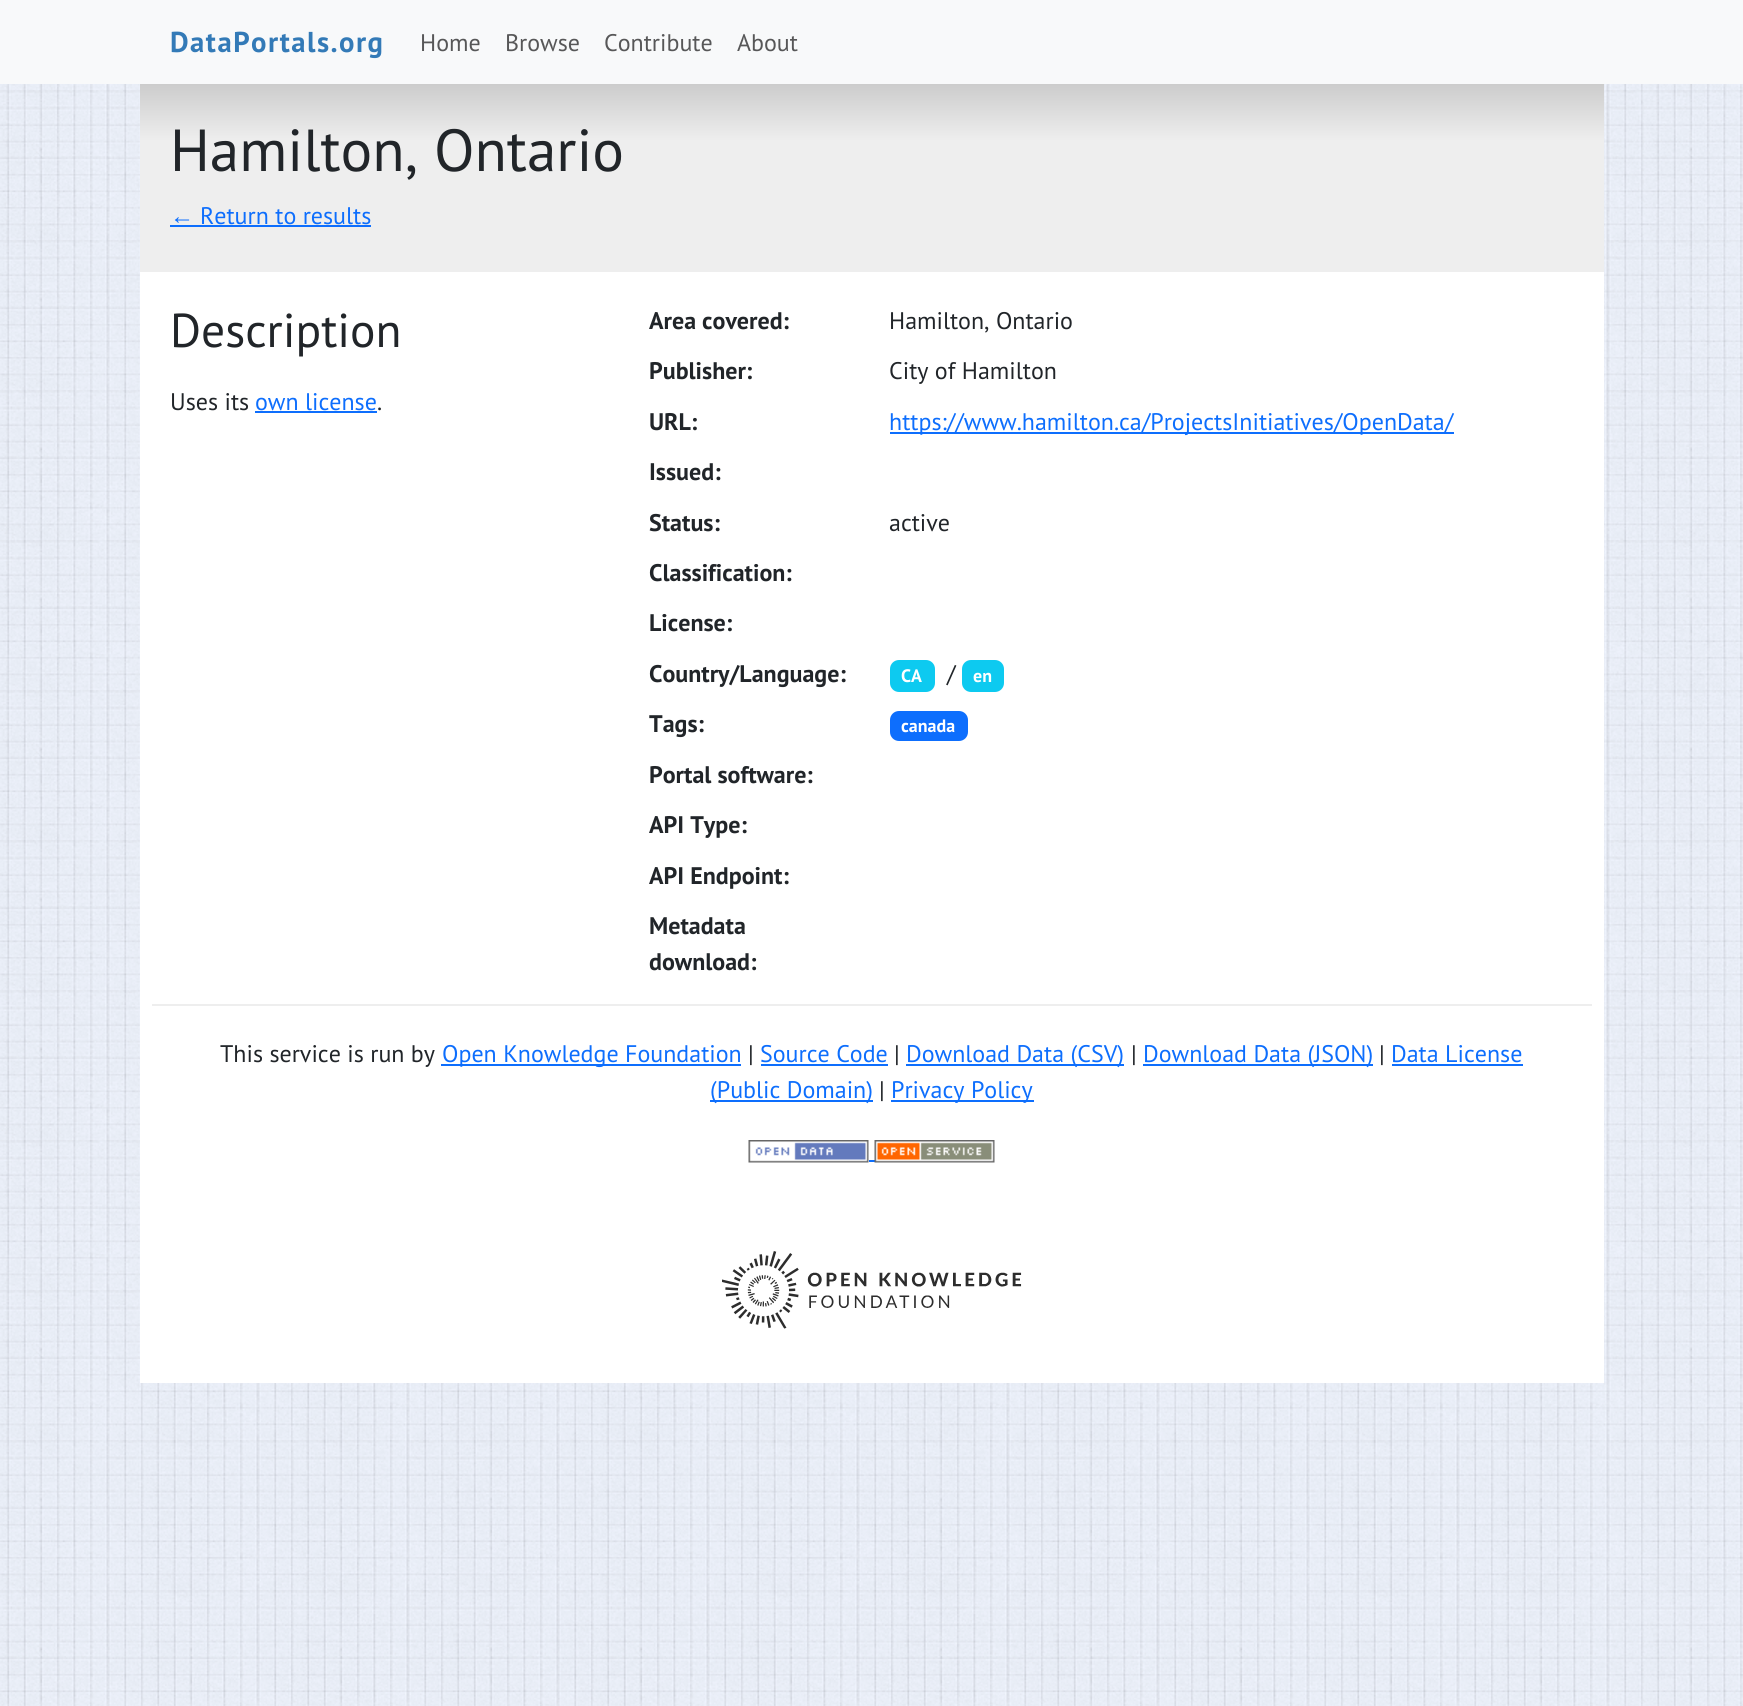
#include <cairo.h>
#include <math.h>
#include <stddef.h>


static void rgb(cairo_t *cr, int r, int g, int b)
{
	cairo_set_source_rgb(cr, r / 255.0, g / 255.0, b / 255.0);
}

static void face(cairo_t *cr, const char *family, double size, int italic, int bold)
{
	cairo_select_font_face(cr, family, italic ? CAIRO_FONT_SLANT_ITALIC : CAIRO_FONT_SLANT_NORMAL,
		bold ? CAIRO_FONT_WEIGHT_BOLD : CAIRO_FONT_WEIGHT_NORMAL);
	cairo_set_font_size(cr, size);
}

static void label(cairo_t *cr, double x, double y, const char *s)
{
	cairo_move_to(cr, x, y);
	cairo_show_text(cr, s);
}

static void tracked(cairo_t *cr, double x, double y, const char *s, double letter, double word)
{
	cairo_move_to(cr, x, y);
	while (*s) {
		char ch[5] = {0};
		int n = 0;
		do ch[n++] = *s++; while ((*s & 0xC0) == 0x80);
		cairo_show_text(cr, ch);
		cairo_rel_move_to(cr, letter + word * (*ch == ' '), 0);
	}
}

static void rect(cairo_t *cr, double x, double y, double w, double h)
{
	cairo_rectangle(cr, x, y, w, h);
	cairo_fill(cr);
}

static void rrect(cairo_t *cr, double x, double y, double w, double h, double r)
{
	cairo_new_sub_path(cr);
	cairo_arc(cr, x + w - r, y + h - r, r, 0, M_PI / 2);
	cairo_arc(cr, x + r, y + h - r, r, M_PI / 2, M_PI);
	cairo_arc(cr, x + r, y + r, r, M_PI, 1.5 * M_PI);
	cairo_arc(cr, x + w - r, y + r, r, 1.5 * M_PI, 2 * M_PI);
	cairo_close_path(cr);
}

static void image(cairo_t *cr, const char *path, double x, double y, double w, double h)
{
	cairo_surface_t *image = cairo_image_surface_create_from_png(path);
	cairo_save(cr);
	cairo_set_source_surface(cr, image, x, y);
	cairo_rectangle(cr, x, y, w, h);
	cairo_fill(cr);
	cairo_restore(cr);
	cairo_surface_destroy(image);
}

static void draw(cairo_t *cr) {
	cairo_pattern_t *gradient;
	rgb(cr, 255, 255, 255);
	cairo_paint(cr);
	image(cr, "image0.png", 0, 84, 1743, 1622);
	rgb(cr, 248, 249, 250);
	rect(cr, 0, 0, 1743, 84);
	face(cr, "PT Sans", 28.75, 0, 1);
	rgb(cr, 51, 122, 183);
	tracked(cr, 170, 52, "DataPortals.org", 1.5, 0);
	face(cr, "PT Sans", 24, 0, 0);
	rgb(cr, 87, 87, 88);
	label(cr, 420, 51, "Home");
	label(cr, 505, 51, "Browse");
	label(cr, 604, 51, "Contribute");
	label(cr, 737, 51, "About");
	rgb(cr, 255, 255, 255);
	rect(cr, 140, 272, 1464, 1111);
	gradient = cairo_pattern_create_linear(872, 272, 872, 84);
	cairo_pattern_add_color_stop_rgba(gradient, 0.7, 0.933, 0.933, 0.933, 1);
	cairo_pattern_add_color_stop_rgba(gradient, 1, 0.8, 0.8, 0.8, 1);
	cairo_set_source(cr, gradient);
	cairo_pattern_destroy(gradient);
	rect(cr, 140, 84, 1464, 188);
	face(cr, "PT Sans", 59.25, 0, 0);
	rgb(cr, 33, 37, 41);
	label(cr, 170, 171, "Hamilton, Ontario");
	face(cr, "Liberation Sans", 24, 0, 0);
	rgb(cr, 13, 110, 253);
	label(cr, 170, 224, "←");
	rect(cr, 170, 225, 201, 2);
	face(cr, "PT Sans", 24, 0, 0);
	label(cr, 200, 224, "Return to results");
	face(cr, "PT Sans", 47.5, 0, 0);
	rgb(cr, 33, 37, 41);
	label(cr, 170, 347, "Description");
	face(cr, "PT Sans", 24, 0, 0);
	label(cr, 170, 410, "Uses its");
	rgb(cr, 13, 110, 253);
	label(cr, 255, 410, "own license");
	rect(cr, 255, 411, 122, 2);
	rgb(cr, 33, 37, 41);
	label(cr, 377, 410, ".");
	face(cr, "PT Sans", 24, 0, 1);
	label(cr, 649, 329, "Area covered:");
	face(cr, "PT Sans", 24, 0, 0);
	label(cr, 889, 329, "Hamilton, Ontario");
	face(cr, "PT Sans", 24, 0, 1);
	label(cr, 649, 379, "Publisher:");
	face(cr, "PT Sans", 24, 0, 0);
	label(cr, 889, 379, "City of Hamilton");
	face(cr, "PT Sans", 24, 0, 1);
	label(cr, 649, 430, "URL:");
	rgb(cr, 13, 110, 253);
	rect(cr, 890, 432, 564, 2);
	face(cr, "PT Sans", 24, 0, 0);
	label(cr, 889, 430, "https://www.hamilton.ca/ProjectsInitiatives/OpenData/");
	face(cr, "PT Sans", 24, 0, 1);
	rgb(cr, 33, 37, 41);
	label(cr, 649, 480, "Issued:");
	label(cr, 649, 531, "Status:");
	face(cr, "PT Sans", 24, 0, 0);
	label(cr, 889, 531, "active");
	face(cr, "PT Sans", 24, 0, 1);
	label(cr, 649, 581, "Classification:");
	label(cr, 649, 631, "License:");
	label(cr, 649, 682, "Country/Language:");
	rgb(cr, 13, 202, 240);
	rrect(cr, 890, 660, 45, 32, 9);
	cairo_fill(cr);
	face(cr, "PT Sans", 18, 0, 1);
	rgb(cr, 255, 255, 255);
	label(cr, 901, 682, "CA");
	face(cr, "PT Sans", 24, 0, 0);
	rgb(cr, 33, 37, 41);
	label(cr, 947, 682, "/");
	rgb(cr, 13, 202, 240);
	rrect(cr, 962, 660, 42, 32, 9);
	cairo_fill(cr);
	face(cr, "PT Sans", 18, 0, 1);
	rgb(cr, 255, 255, 255);
	label(cr, 973, 682, "en");
	face(cr, "PT Sans", 24, 0, 1);
	rgb(cr, 33, 37, 41);
	label(cr, 649, 732, "Tags:");
	rgb(cr, 13, 110, 253);
	rrect(cr, 890, 711, 78, 30, 9);
	cairo_fill(cr);
	face(cr, "PT Sans", 18, 0, 1);
	rgb(cr, 255, 255, 255);
	label(cr, 901, 732, "canada");
	face(cr, "PT Sans", 24, 0, 1);
	rgb(cr, 33, 37, 41);
	label(cr, 649, 783, "Portal software:");
	label(cr, 649, 833, "API Type:");
	label(cr, 649, 884, "API Endpoint:");
	label(cr, 649, 934, "Metadata");
	label(cr, 649, 970, "download:");
	rgb(cr, 238, 238, 238);
	rect(cr, 152, 1004, 1440, 2);
	face(cr, "PT Sans", 24, 0, 0);
	rgb(cr, 33, 37, 41);
	label(cr, 220, 1062, "This service is run by");
	rgb(cr, 13, 110, 253);
	rect(cr, 441, 1064, 300, 2);
	label(cr, 442, 1062, "Open Knowledge Foundation");
	rgb(cr, 33, 37, 41);
	label(cr, 748, 1062, "|");
	rgb(cr, 13, 110, 253);
	label(cr, 760, 1062, "Source Code");
	rect(cr, 761, 1064, 127, 2);
	rgb(cr, 33, 37, 41);
	label(cr, 894, 1062, "|");
	rgb(cr, 13, 110, 253);
	rect(cr, 906, 1064, 218, 2);
	label(cr, 906, 1062, "Download Data (CSV)");
	rgb(cr, 33, 37, 41);
	label(cr, 1131, 1062, "|");
	rgb(cr, 13, 110, 253);
	rect(cr, 1143, 1064, 230, 2);
	label(cr, 1143, 1062, "Download Data (JSON)");
	rgb(cr, 33, 37, 41);
	label(cr, 1379, 1062, "|");
	rgb(cr, 13, 110, 253);
	label(cr, 1391, 1062, "Data License");
	rect(cr, 1392, 1064, 131, 2);
	rect(cr, 710, 1100, 163, 2);
	label(cr, 710, 1098, "(Public Domain)");
	rgb(cr, 33, 37, 41);
	label(cr, 879, 1098, "|");
	rgb(cr, 13, 110, 253);
	rect(cr, 891, 1100, 143, 2);
	label(cr, 891, 1098, "Privacy Policy");
	image(cr, "image1.png", 748, 1140, 121, 23);
	rect(cr, 869, 1160, 6, 2);
	image(cr, "image2.png", 874, 1140, 121, 23);
	image(cr, "image3.png", 722, 1251, 300, 78);
}

int main(void) {
	cairo_surface_t *surface = cairo_image_surface_create(CAIRO_FORMAT_RGB24, 1743, 1706);
	cairo_t *cr = cairo_create(surface);
	cairo_font_options_t *options = cairo_font_options_create();
	cairo_font_options_set_hint_metrics(options, CAIRO_HINT_METRICS_OFF);
	cairo_font_options_set_hint_style(options, CAIRO_HINT_STYLE_NONE);
	cairo_set_font_options(cr, options);
	cairo_set_miter_limit(cr, 4);
	draw(cr);
	cairo_surface_write_to_png(surface, "render.png");
	cairo_font_options_destroy(options);
	cairo_destroy(cr);
	cairo_surface_destroy(surface);
	return 0;
}
